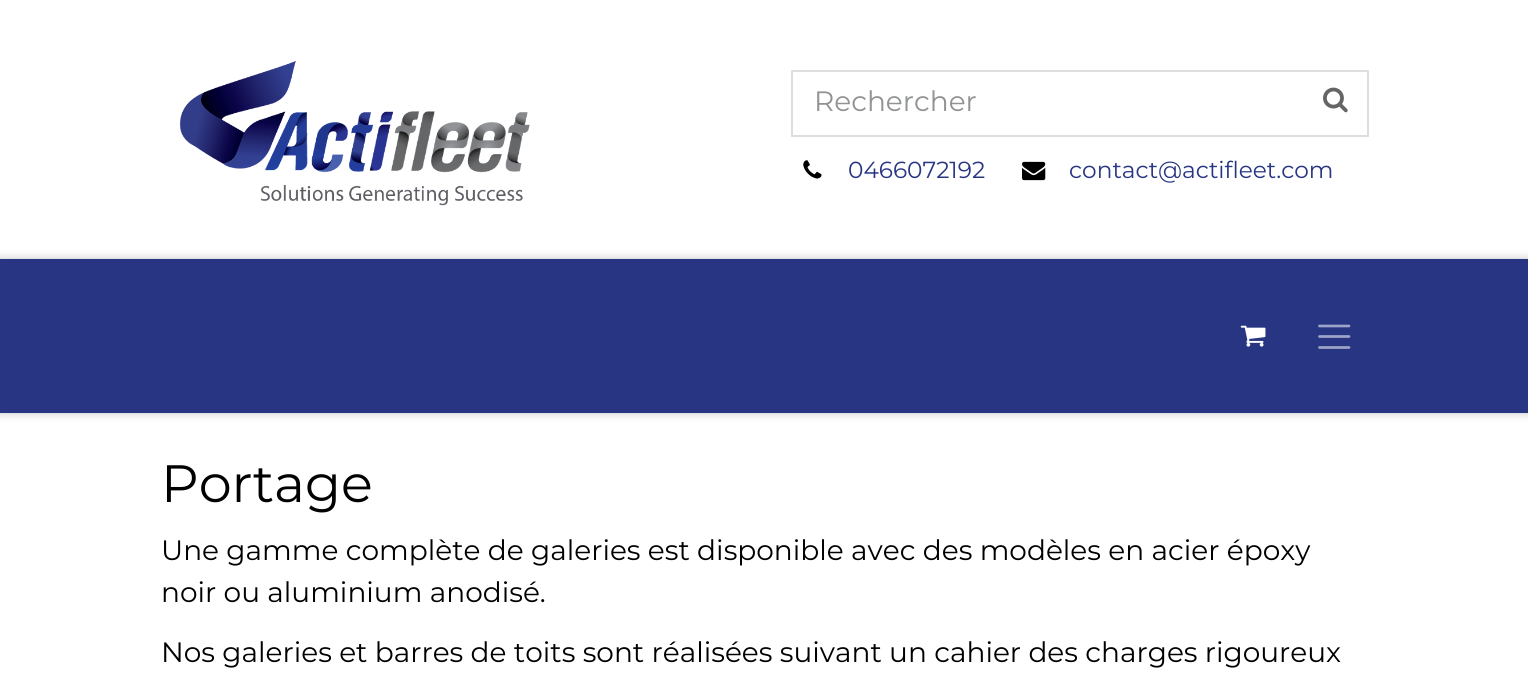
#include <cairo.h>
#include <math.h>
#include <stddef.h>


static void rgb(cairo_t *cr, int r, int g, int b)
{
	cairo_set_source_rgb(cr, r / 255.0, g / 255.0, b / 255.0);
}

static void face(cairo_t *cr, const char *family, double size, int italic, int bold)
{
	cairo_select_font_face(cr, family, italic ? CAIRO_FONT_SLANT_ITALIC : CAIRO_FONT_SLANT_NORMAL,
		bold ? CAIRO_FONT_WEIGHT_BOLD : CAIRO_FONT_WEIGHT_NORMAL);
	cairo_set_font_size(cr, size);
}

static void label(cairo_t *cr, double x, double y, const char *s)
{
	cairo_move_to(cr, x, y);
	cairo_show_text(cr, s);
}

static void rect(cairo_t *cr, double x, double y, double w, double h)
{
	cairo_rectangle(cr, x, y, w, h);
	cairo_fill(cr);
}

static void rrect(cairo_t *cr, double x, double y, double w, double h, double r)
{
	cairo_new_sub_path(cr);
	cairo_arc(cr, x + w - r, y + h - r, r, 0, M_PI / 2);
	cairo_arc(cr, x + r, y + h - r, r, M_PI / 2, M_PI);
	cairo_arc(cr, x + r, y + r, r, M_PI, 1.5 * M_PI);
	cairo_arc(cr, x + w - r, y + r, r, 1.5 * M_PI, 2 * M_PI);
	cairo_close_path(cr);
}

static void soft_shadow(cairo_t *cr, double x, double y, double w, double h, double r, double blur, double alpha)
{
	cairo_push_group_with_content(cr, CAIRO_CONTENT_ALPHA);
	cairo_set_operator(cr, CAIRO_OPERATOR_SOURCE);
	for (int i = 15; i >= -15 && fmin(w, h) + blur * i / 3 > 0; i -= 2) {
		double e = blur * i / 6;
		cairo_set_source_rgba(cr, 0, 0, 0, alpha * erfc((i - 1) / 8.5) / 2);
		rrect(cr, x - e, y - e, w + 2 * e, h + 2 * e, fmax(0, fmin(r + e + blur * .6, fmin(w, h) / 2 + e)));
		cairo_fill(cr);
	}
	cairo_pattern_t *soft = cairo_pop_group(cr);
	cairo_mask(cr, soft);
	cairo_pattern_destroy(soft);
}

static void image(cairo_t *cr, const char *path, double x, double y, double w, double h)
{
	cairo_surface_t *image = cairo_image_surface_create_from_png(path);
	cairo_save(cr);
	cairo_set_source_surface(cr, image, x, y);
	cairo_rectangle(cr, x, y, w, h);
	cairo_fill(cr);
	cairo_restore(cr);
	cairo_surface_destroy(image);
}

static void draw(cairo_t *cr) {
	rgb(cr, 255, 255, 255);
	cairo_paint(cr);
	image(cr, "image0.png", 179, 61, 351, 145);
	cairo_rectangle(cr, 792, 71, 576, 65);
	rgb(cr, 222, 222, 223);
	cairo_stroke(cr);
	face(cr, "Montserrat", 28, 0, 0);
	rgb(cr, 144, 146, 148);
	label(cr, 814, 111, "Rechercher");
	image(cr, "image1.png", 1323, 87, 25, 26);
	image(cr, "image2.png", 803, 160, 19, 19);
	face(cr, "Montserrat", 23.25, 0, 0);
	rgb(cr, 39, 53, 130);
	label(cr, 848, 178, "0466072192");
	image(cr, "image3.png", 1022, 161, 24, 20);
	label(cr, 1069, 178, "contact@actifleet.com");
	rgb(cr, 0, 0, 0);
	soft_shadow(cr, 0, 259, 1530, 154, 0, 4.5, 0.25);
	rgb(cr, 39, 53, 130);
	rect(cr, 0, 259, 1528, 154);
	image(cr, "image4.png", 1240, 325, 26, 22);
	cairo_new_path(cr);
	cairo_move_to(cr, 1319.5, 326);
	cairo_line_to(cr, 1349, 326);
	cairo_move_to(cr, 1319.5, 336.5);
	cairo_line_to(cr, 1349, 336.5);
	cairo_move_to(cr, 1319.5, 347.5);
	cairo_line_to(cr, 1349, 347.5);
	rgb(cr, 158, 164, 199);
	cairo_set_line_width(cr, 2.7);
	cairo_set_line_cap(cr, CAIRO_LINE_CAP_ROUND);
	cairo_stroke(cr);
	face(cr, "Montserrat", 52.5, 0, 0);
	rgb(cr, 0, 0, 0);
	label(cr, 161, 502, "Portage");
	face(cr, "Montserrat", 28, 0, 0);
	label(cr, 161, 560, "Une gamme complète de galeries est disponible avec des modèles en acier époxy");
	label(cr, 161, 602, "noir ou aluminium anodisé.");
	label(cr, 161, 662, "Nos galeries et barres de toits sont réalisées suivant un cahier des charges rigoureux");
}

int main(void) {
	cairo_surface_t *surface = cairo_image_surface_create(CAIRO_FORMAT_RGB24, 1528, 678);
	cairo_t *cr = cairo_create(surface);
	cairo_font_options_t *options = cairo_font_options_create();
	cairo_font_options_set_hint_metrics(options, CAIRO_HINT_METRICS_OFF);
	cairo_font_options_set_hint_style(options, CAIRO_HINT_STYLE_NONE);
	cairo_set_font_options(cr, options);
	cairo_set_miter_limit(cr, 4);
	draw(cr);
	cairo_surface_write_to_png(surface, "render.png");
	cairo_font_options_destroy(options);
	cairo_destroy(cr);
	cairo_surface_destroy(surface);
	return 0;
}
